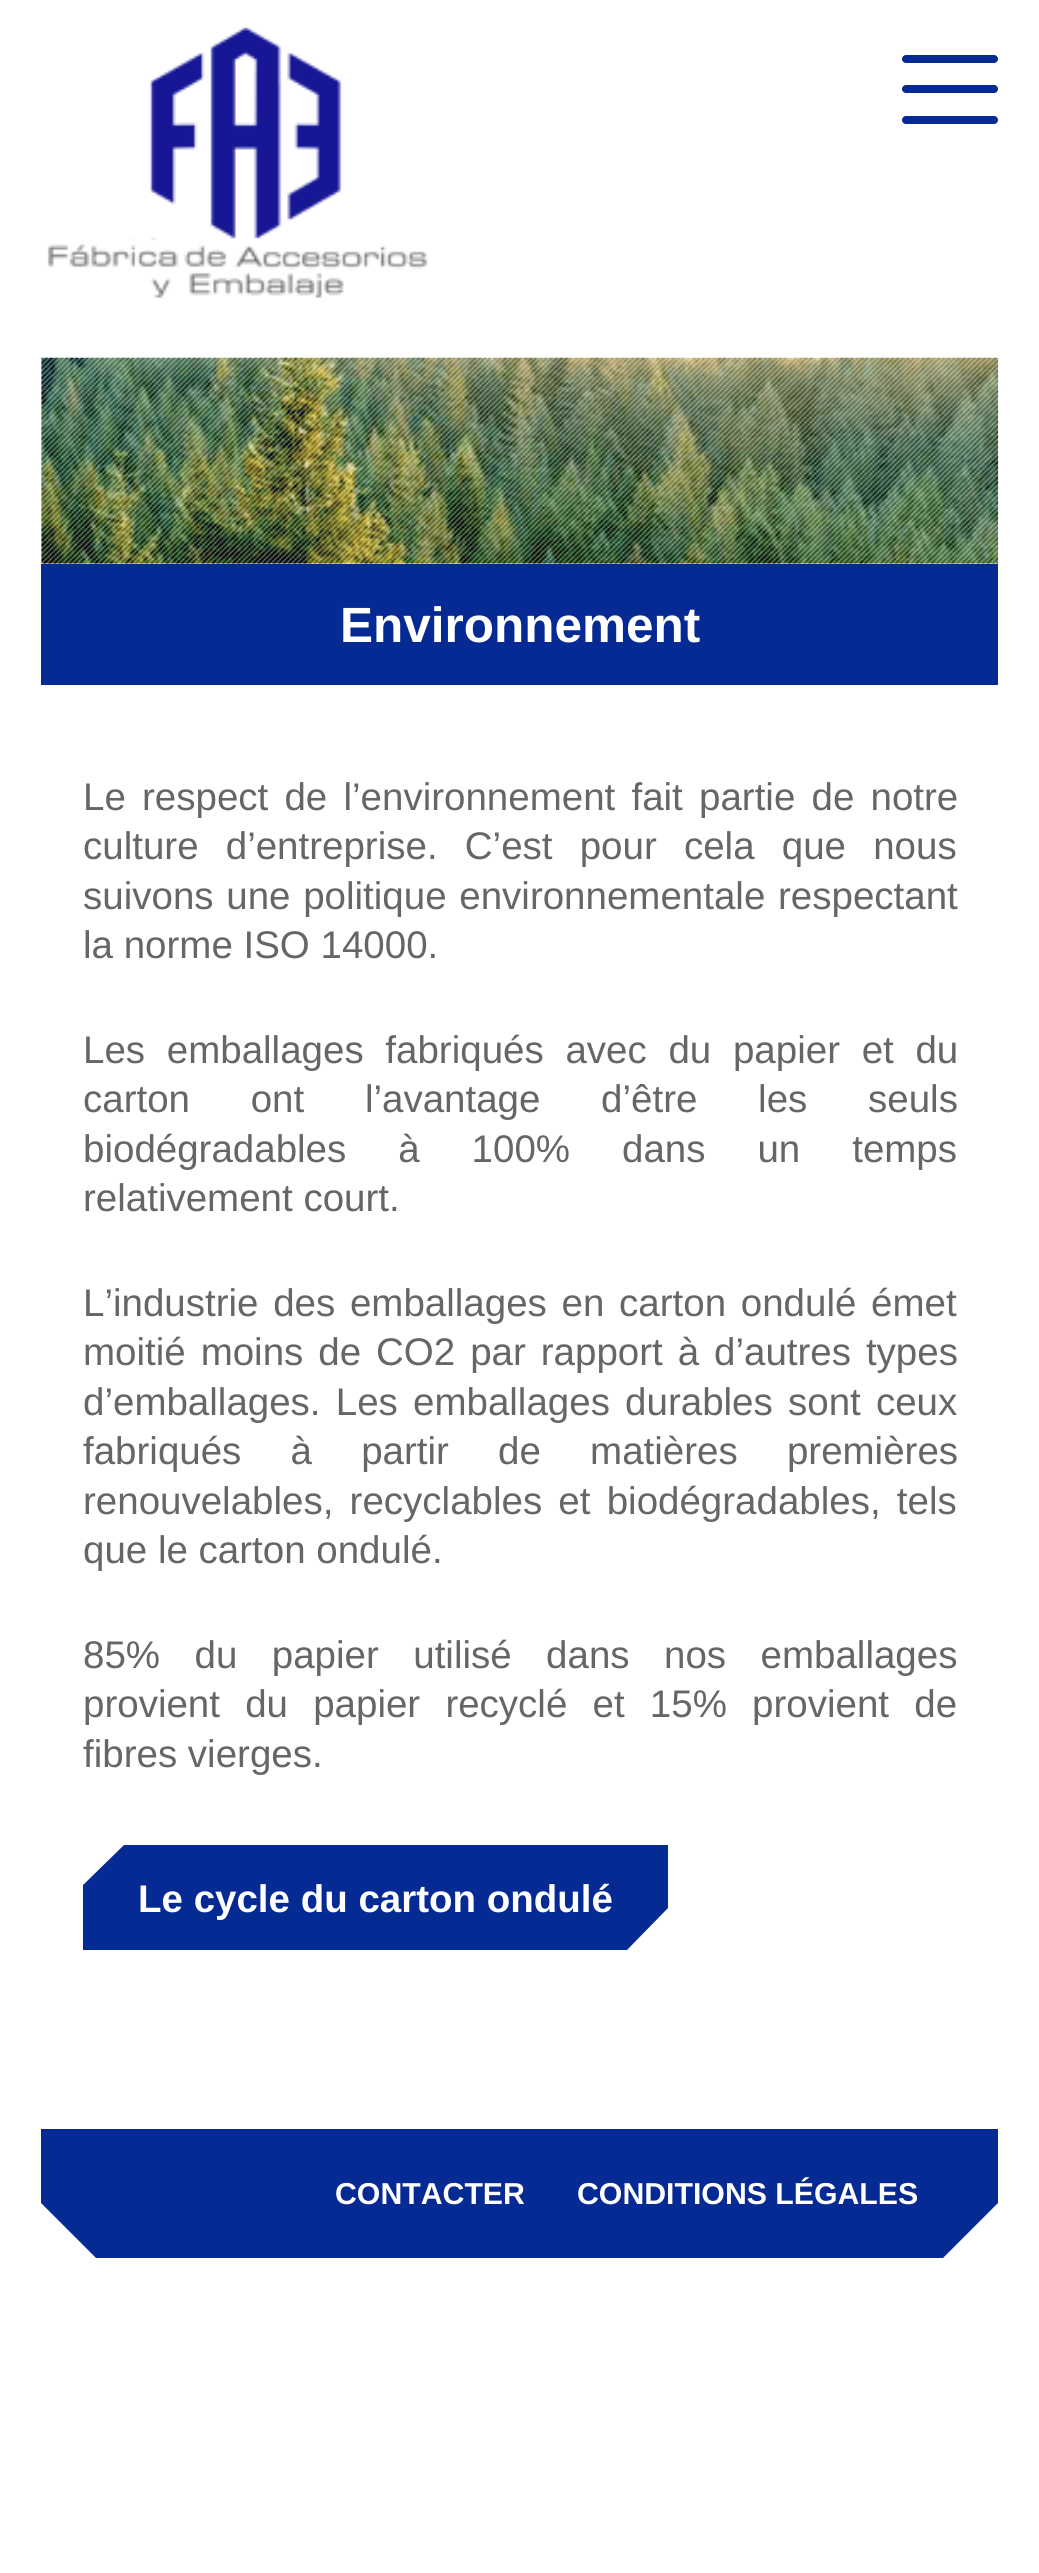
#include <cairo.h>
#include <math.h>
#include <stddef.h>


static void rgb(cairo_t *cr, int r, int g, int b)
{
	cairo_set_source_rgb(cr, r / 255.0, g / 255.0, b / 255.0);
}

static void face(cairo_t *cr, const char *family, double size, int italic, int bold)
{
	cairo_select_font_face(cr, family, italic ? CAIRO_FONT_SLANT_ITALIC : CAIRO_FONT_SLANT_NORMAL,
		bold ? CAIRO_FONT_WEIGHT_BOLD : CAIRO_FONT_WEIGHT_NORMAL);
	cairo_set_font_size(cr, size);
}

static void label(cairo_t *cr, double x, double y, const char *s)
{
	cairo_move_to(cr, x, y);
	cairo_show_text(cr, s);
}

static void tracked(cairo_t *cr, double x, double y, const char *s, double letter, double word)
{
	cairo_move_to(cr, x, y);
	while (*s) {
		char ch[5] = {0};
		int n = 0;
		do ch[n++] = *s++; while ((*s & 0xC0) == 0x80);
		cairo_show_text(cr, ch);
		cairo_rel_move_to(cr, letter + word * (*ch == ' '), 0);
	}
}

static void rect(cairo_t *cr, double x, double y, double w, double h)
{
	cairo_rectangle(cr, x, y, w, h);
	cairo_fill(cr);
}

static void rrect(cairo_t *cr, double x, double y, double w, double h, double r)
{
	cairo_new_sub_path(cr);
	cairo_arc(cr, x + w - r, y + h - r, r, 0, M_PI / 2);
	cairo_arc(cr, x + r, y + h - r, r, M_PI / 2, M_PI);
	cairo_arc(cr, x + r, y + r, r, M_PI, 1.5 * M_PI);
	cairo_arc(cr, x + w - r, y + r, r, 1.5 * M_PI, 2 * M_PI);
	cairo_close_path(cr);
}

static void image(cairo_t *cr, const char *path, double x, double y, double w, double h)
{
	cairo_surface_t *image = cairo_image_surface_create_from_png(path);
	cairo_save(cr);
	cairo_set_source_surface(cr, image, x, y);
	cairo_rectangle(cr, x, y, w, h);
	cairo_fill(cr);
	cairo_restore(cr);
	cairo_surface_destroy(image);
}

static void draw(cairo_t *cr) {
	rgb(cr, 255, 255, 255);
	cairo_paint(cr);
	image(cr, "image0.png", 47, 27, 381, 272);
	rgb(cr, 5, 42, 147);
	rrect(cr, 902, 55, 96, 8, 4);
	cairo_fill(cr);
	rrect(cr, 902, 85, 96, 8, 4);
	cairo_fill(cr);
	rrect(cr, 902, 116, 96, 8, 4);
	cairo_fill(cr);
	image(cr, "image1.png", 41, 357, 958, 207);
	rect(cr, 41, 564, 957, 121);
	face(cr, "Liberation Sans", 49.5, 0, 1);
	rgb(cr, 255, 255, 255);
	label(cr, 340, 642, "Environnement");
	face(cr, "Liberation Sans", 38.5, 0, 0);
	rgb(cr, 102, 102, 102);
	tracked(cr, 83, 810, "Le respect de l’environnement fait partie de notre", 0, 5.5);
	tracked(cr, 83, 859, "culture d’entreprise. C’est pour cela que nous", 0, 16.5);
	tracked(cr, 83, 909, "suivons une politique environnementale respectant", 0, 2);
	label(cr, 83, 958, "la norme ISO 14000.");
	tracked(cr, 83, 1063, "Les emballages fabriqués avec du papier et du", 0, 11);
	tracked(cr, 83, 1112, "carton ont l’avantage d’être les seuls", 0, 50);
	tracked(cr, 83, 1162, "biodégradables à 100% dans un temps", 0, 41.25);
	label(cr, 83, 1211, "relativement court.");
	tracked(cr, 83, 1316, "L’industrie des emballages en carton ondulé émet", 0, 4);
	tracked(cr, 83, 1365, "moitié moins de CO2 par rapport à d’autres types", 0, 4.25);
	tracked(cr, 83, 1415, "d’emballages. Les emballages durables sont ceux", 0, 4.5);
	tracked(cr, 83, 1464, "fabriqués à partir de matières premières", 0, 38.5);
	tracked(cr, 83, 1514, "renouvelables, recyclables et biodégradables, tels", 0, 5.5);
	label(cr, 83, 1563, "que le carton ondulé.");
	tracked(cr, 83, 1668, "85% du papier utilisé dans nos emballages", 0, 23.75);
	tracked(cr, 83, 1717, "provient du papier recyclé et 15% provient de", 0, 14.5);
	label(cr, 83, 1767, "fibres vierges.");
	rgb(cr, 5, 42, 147);
	rect(cr, 83, 1845, 585, 105);
	cairo_save(cr);
	cairo_rectangle(cr, 83, 1845, 585, 105);
	cairo_clip(cr);
	rgb(cr, 255, 255, 255);
	cairo_new_path(cr);
	cairo_move_to(cr, 82, 1886);
	cairo_line_to(cr, 82, 1845);
	cairo_line_to(cr, 124, 1845);
	cairo_close_path(cr);
	cairo_fill(cr);
	cairo_restore(cr);
	face(cr, "Liberation Sans", 38.5, 0, 1);
	rgb(cr, 255, 255, 255);
	label(cr, 138, 1912, "Le cycle du carton ondulé");
	cairo_new_path(cr);
	cairo_move_to(cr, 668, 1908);
	cairo_line_to(cr, 668, 1950);
	cairo_line_to(cr, 627, 1950);
	cairo_close_path(cr);
	cairo_fill(cr);
	rgb(cr, 5, 42, 147);
	rect(cr, 41, 2129, 957, 129);
	face(cr, "Liberation Sans", 30.25, 0, 1);
	rgb(cr, 255, 255, 255);
	label(cr, 335, 2204, "CONTACTER");
	label(cr, 577, 2204, "CONDITIONS LÉGALES");
	cairo_new_path(cr);
	cairo_move_to(cr, 41, 2258);
	cairo_line_to(cr, 41, 2203);
	cairo_line_to(cr, 96, 2258);
	cairo_close_path(cr);
	cairo_fill(cr);
	cairo_new_path(cr);
	cairo_move_to(cr, 998, 2203);
	cairo_line_to(cr, 998, 2258);
	cairo_line_to(cr, 943, 2258);
	cairo_close_path(cr);
	cairo_fill(cr);
}

int main(void) {
	cairo_surface_t *surface = cairo_image_surface_create(CAIRO_FORMAT_RGB24, 1039, 2573);
	cairo_t *cr = cairo_create(surface);
	cairo_font_options_t *options = cairo_font_options_create();
	cairo_font_options_set_hint_metrics(options, CAIRO_HINT_METRICS_OFF);
	cairo_font_options_set_hint_style(options, CAIRO_HINT_STYLE_NONE);
	cairo_set_font_options(cr, options);
	cairo_set_miter_limit(cr, 4);
	draw(cr);
	cairo_surface_write_to_png(surface, "render.png");
	cairo_font_options_destroy(options);
	cairo_destroy(cr);
	cairo_surface_destroy(surface);
	return 0;
}
